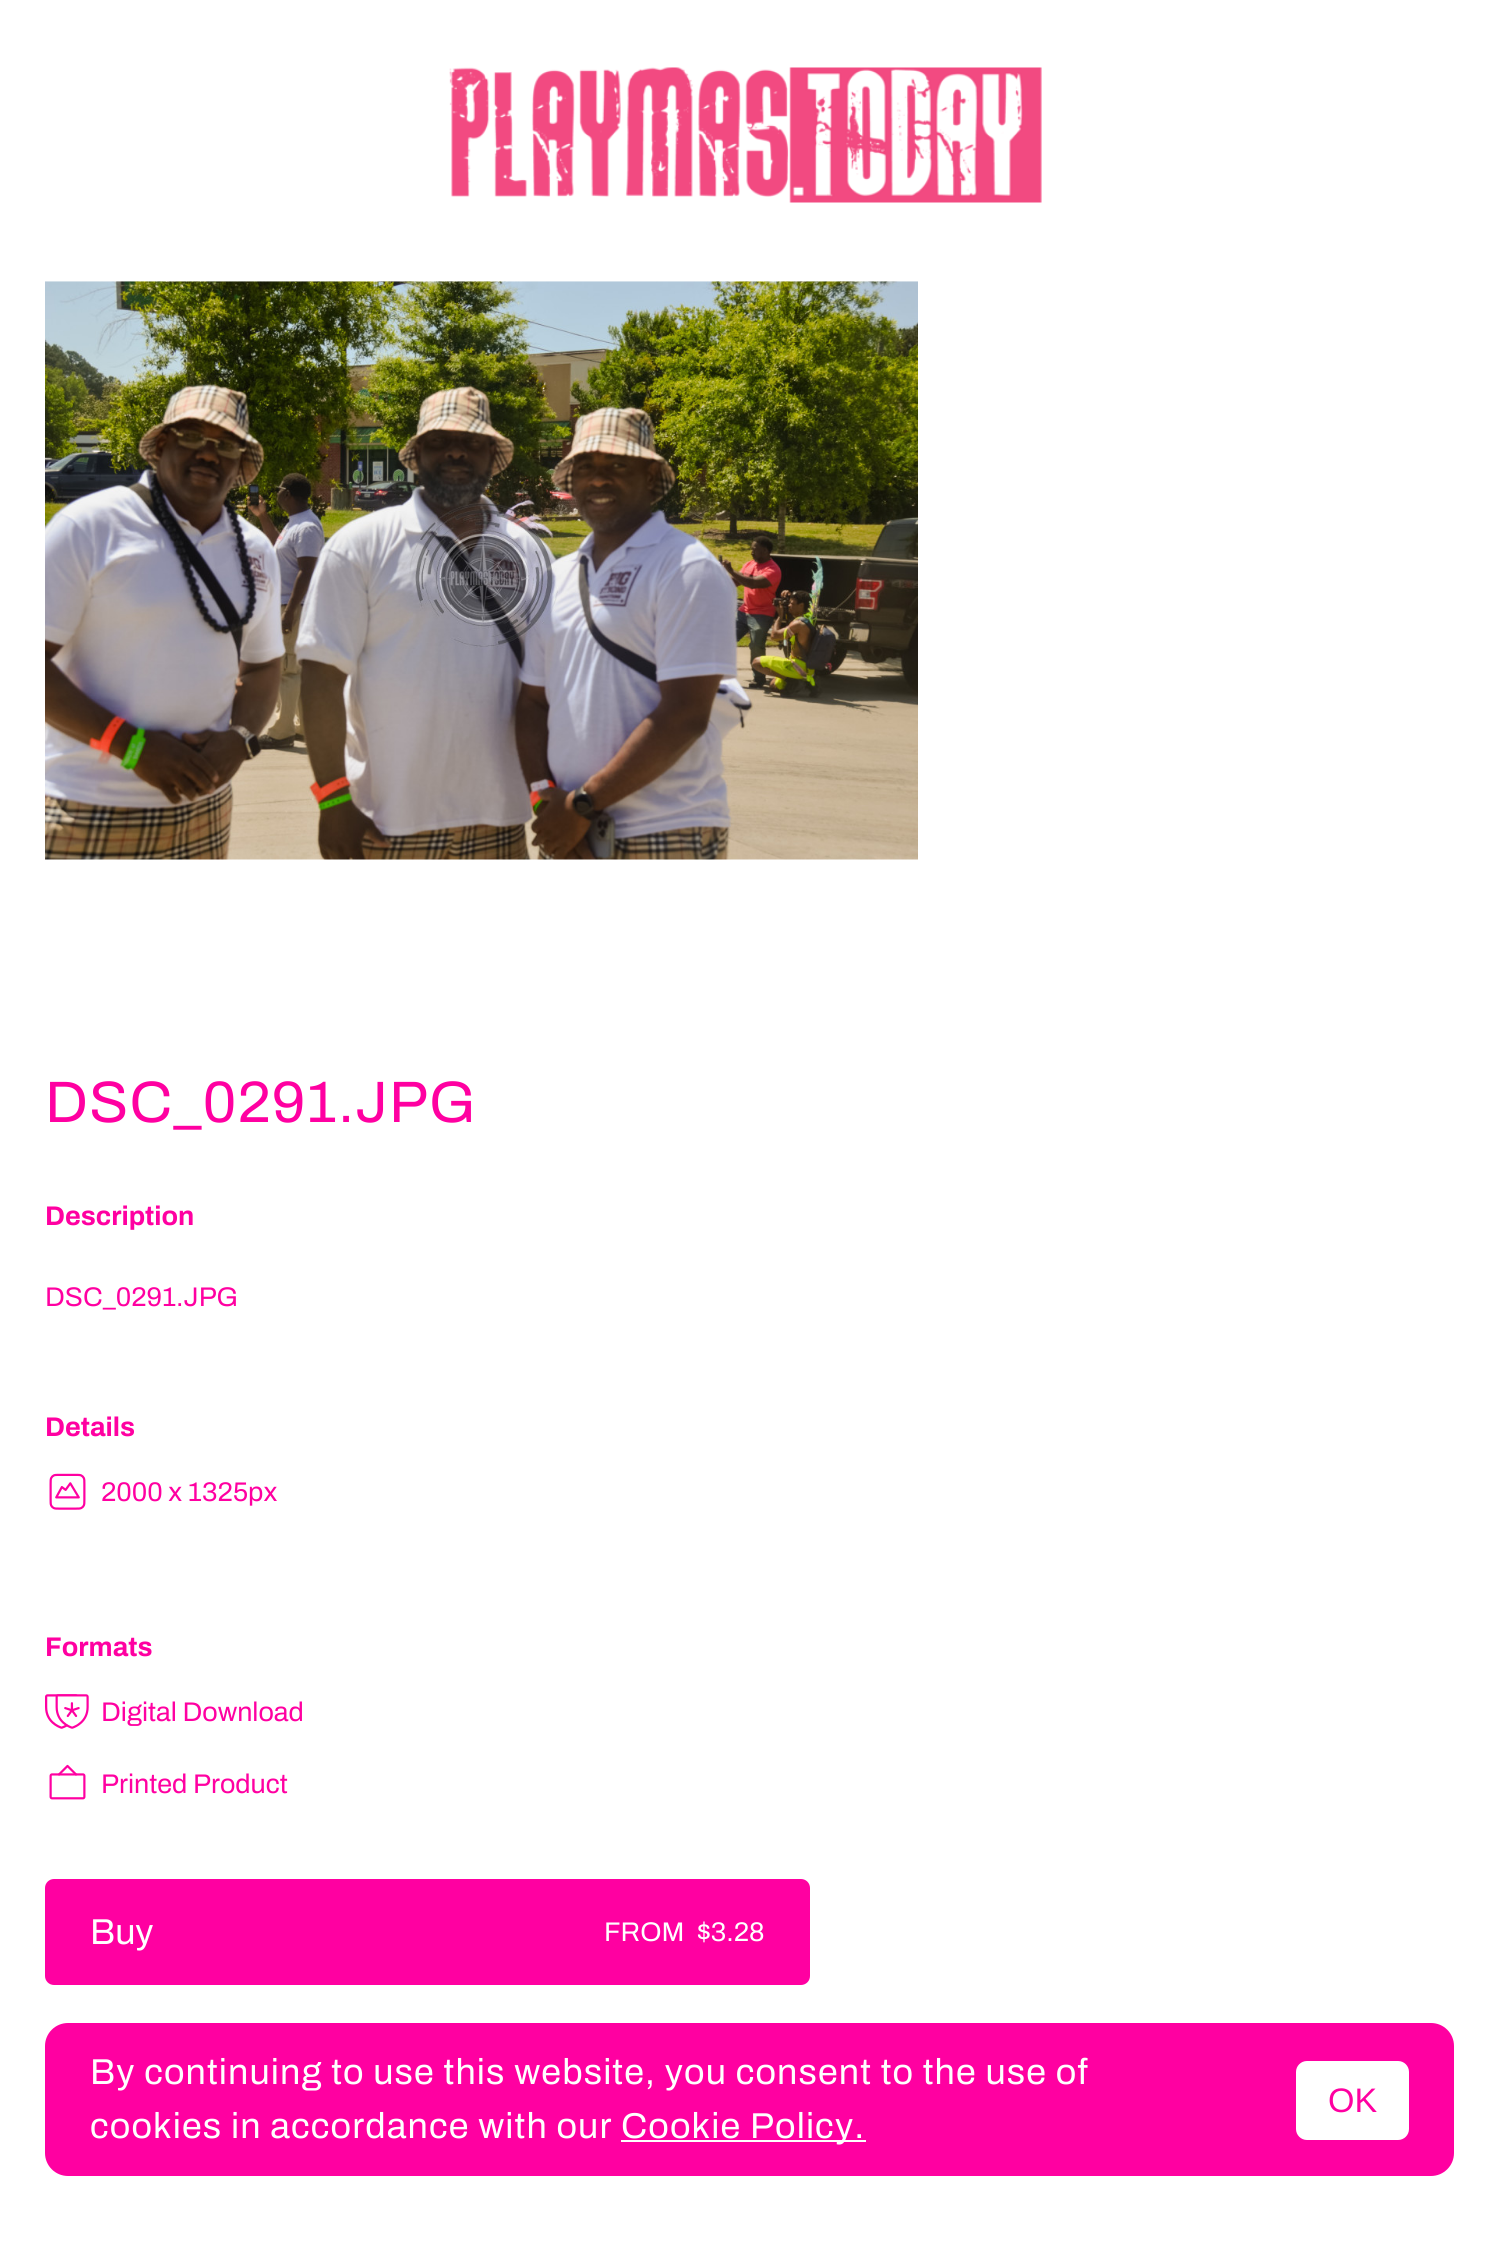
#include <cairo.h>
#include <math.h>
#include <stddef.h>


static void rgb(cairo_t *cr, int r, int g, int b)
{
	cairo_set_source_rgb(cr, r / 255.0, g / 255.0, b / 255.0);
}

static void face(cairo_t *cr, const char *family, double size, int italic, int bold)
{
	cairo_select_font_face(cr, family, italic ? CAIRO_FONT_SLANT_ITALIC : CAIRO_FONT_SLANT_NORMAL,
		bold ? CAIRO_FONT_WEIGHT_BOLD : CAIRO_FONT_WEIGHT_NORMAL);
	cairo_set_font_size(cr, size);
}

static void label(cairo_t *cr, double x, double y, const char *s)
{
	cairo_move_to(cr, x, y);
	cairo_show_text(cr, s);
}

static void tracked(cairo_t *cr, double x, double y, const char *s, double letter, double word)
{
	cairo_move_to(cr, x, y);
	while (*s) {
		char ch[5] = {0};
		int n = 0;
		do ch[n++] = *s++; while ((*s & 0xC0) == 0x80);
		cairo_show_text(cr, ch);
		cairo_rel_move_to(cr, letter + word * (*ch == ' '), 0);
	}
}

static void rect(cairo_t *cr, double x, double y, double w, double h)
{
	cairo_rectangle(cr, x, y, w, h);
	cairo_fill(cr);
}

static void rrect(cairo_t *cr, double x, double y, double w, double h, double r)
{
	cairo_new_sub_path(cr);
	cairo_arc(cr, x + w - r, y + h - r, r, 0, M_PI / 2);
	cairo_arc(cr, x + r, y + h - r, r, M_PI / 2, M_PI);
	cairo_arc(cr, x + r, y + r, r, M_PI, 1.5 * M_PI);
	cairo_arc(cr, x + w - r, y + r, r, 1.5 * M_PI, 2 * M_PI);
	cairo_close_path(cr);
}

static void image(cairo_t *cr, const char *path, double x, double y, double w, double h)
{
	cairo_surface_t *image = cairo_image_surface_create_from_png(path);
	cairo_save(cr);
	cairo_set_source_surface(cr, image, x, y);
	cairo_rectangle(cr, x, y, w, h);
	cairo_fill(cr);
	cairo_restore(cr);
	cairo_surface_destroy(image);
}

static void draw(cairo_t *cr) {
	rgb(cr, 255, 255, 255);
	cairo_paint(cr);
	image(cr, "image0.png", 449, 67, 593, 136);
	image(cr, "image1.png", 45, 281, 873, 579);
	face(cr, "Archivo", 58.5, 0, 0);
	rgb(cr, 255, 0, 161);
	tracked(cr, 45, 1122, "DSC_0291.JPG", 1.12, 0);
	face(cr, "Archivo", 27, 0, 1);
	label(cr, 45, 1225, "Description");
	face(cr, "Archivo", 27, 0, 0);
	label(cr, 45, 1306, "DSC_0291.JPG");
	face(cr, "Archivo", 27, 0, 1);
	label(cr, 45, 1436, "Details");
	image(cr, "image2.png", 49, 1473, 37, 37);
	face(cr, "Archivo", 27, 0, 0);
	label(cr, 101, 1501, "2000 x 1325px");
	face(cr, "Archivo", 27, 0, 1);
	label(cr, 45, 1656, "Formats");
	image(cr, "image3.png", 45, 1694, 44, 35);
	face(cr, "Archivo", 27, 0, 0);
	label(cr, 101, 1721, "Digital Download");
	image(cr, "image4.png", 49, 1764, 37, 36);
	label(cr, 101, 1793, "Printed Product");
	rrect(cr, 45, 1879, 765, 106, 9);
	cairo_fill(cr);
	face(cr, "Archivo", 36, 0, 0);
	rgb(cr, 255, 255, 255);
	label(cr, 90, 1944, "Buy");
	face(cr, "Archivo", 27, 0, 0);
	label(cr, 604, 1941, "FROM");
	label(cr, 697, 1941, "$3.28");
	rgb(cr, 255, 0, 161);
	rrect(cr, 45, 2023, 1409, 153, 23);
	cairo_fill(cr);
	face(cr, "Archivo", 36, 0, 0);
	rgb(cr, 255, 255, 255);
	tracked(cr, 90, 2084, "By continuing to use this website, you consent to the use of", 1.12, 0);
	tracked(cr, 90, 2138, "cookies in accordance with our", 1.12, 0);
	rect(cr, 621, 2140, 245, 2);
	tracked(cr, 621, 2138, "Cookie Policy.", 1.12, 0);
	rrect(cr, 1296, 2061, 113, 79, 11);
	cairo_fill(cr);
	face(cr, "Liberation Sans", 34, 0, 0);
	rgb(cr, 255, 0, 161);
	label(cr, 1328, 2112, "OK");
}

int main(void) {
	cairo_surface_t *surface = cairo_image_surface_create(CAIRO_FORMAT_RGB24, 1498, 2254);
	cairo_t *cr = cairo_create(surface);
	cairo_font_options_t *options = cairo_font_options_create();
	cairo_font_options_set_hint_metrics(options, CAIRO_HINT_METRICS_OFF);
	cairo_font_options_set_hint_style(options, CAIRO_HINT_STYLE_NONE);
	cairo_set_font_options(cr, options);
	cairo_set_miter_limit(cr, 4);
	draw(cr);
	cairo_surface_write_to_png(surface, "render.png");
	cairo_font_options_destroy(options);
	cairo_destroy(cr);
	cairo_surface_destroy(surface);
	return 0;
}
